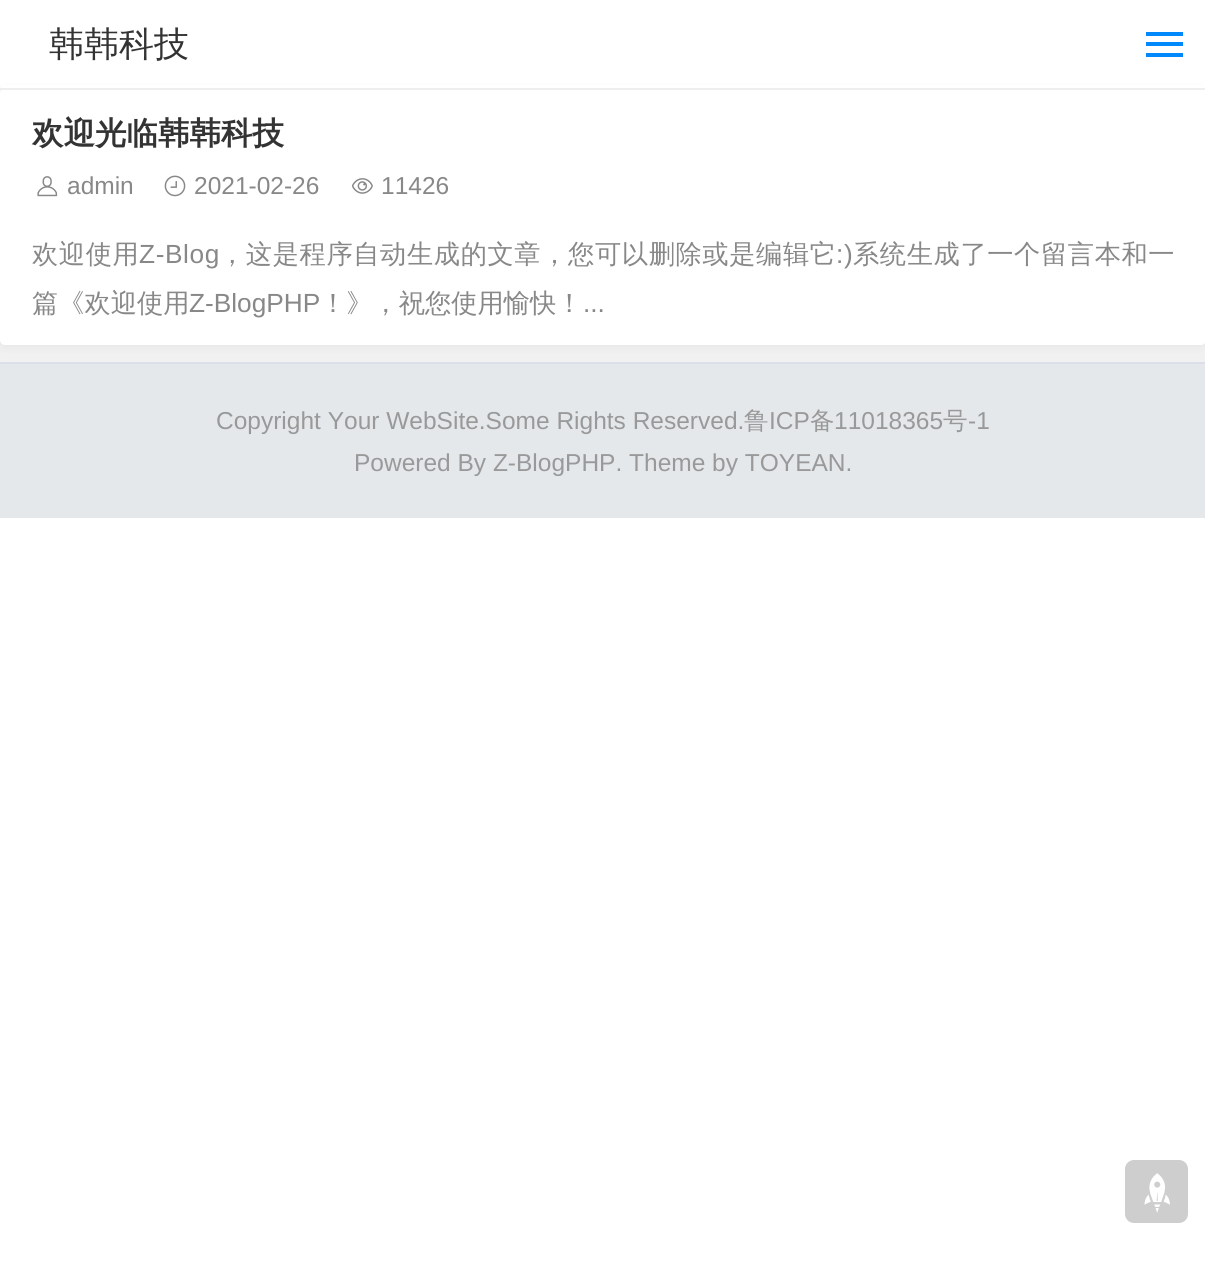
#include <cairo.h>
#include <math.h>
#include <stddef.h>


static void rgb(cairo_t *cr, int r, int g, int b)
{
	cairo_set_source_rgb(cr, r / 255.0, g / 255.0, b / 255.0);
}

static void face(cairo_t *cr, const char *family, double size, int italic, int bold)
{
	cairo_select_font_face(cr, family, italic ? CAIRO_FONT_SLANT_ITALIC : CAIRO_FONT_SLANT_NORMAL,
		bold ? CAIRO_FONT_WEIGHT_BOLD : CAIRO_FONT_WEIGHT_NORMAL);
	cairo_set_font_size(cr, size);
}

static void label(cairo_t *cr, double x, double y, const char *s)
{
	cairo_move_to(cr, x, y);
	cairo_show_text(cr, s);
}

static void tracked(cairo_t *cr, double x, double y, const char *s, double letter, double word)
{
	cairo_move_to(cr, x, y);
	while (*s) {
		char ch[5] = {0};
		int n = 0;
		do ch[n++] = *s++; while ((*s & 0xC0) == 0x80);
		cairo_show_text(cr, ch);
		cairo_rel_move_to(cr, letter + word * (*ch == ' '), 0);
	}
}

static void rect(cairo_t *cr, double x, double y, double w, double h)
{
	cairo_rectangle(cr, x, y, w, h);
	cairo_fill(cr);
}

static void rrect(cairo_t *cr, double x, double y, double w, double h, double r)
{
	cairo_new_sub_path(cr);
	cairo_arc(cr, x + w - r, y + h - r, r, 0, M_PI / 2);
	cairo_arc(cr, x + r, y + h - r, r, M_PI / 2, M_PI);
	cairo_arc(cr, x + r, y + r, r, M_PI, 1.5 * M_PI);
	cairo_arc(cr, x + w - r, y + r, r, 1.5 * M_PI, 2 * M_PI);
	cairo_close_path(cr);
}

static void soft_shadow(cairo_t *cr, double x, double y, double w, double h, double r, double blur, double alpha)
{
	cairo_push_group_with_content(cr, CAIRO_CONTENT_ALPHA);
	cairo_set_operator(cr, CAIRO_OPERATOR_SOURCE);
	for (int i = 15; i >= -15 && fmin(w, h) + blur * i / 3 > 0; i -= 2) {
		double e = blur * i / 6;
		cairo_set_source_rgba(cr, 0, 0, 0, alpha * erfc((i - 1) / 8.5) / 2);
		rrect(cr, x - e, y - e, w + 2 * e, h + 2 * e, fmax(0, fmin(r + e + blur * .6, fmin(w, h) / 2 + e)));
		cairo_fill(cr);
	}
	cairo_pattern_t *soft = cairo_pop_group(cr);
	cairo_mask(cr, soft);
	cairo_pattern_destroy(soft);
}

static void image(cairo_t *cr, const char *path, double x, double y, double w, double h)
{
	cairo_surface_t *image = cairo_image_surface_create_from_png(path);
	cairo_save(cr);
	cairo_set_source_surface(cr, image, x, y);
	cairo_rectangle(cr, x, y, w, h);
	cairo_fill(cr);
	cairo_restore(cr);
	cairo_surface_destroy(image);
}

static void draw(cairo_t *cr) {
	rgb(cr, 255, 255, 255);
	cairo_paint(cr);
	rgb(cr, 241, 241, 241);
	rect(cr, 0, 90, 1205, 272);
	rgb(cr, 0, 0, 0);
	soft_shadow(cr, 0, 89, 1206, 258, 5, 4.5, 0.05);
	rgb(cr, 255, 255, 255);
	rect(cr, 2, 85, 1202, 3);
	rrect(cr, 0, 88, 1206, 257, 5);
	cairo_fill(cr);
	rgb(cr, 238, 238, 238);
	rect(cr, 0, 88, 1205, 2);
	face(cr, "WenQuanYi Zen Hei Medium", 35, 0, 0);
	rgb(cr, 51, 51, 51);
	label(cr, 49, 56, "韩韩科技");
	rgb(cr, 1, 136, 251);
	rect(cr, 1146, 32, 37, 4);
	rect(cr, 1146, 42, 37, 4);
	rect(cr, 1146, 53, 37, 4);
	face(cr, "WenQuanYi Zen Hei", 31.5, 0, 1);
	rgb(cr, 51, 51, 51);
	label(cr, 32, 144, "欢迎光临韩韩科技");
	image(cr, "image0.png", 37, 176, 21, 21);
	face(cr, "Liberation Sans", 24.5, 0, 0);
	rgb(cr, 136, 136, 136);
	label(cr, 67, 194, "admin");
	image(cr, "image1.png", 164, 175, 22, 22);
	label(cr, 194, 194, "2021-02-26");
	image(cr, "image2.png", 352, 178, 21, 16);
	label(cr, 381, 194, "11426");
	face(cr, "WenQuanYi Zen Hei Medium", 26.25, 0, 0);
	tracked(cr, 32, 263, "欢迎使用", 0.6, 0);
	face(cr, "Liberation Sans", 26.25, 0, 0);
	tracked(cr, 139, 263, "Z-Blog", 0.6, 0);
	face(cr, "WenQuanYi Zen Hei Medium", 26.25, 0, 0);
	tracked(cr, 219, 263, "，这是程序自动生成的文章，您可以删除或是编辑它", 0.6, 0);
	face(cr, "Liberation Sans", 26.25, 0, 0);
	tracked(cr, 836, 263, ":)", 0.6, 0);
	face(cr, "WenQuanYi Zen Hei Medium", 26.25, 0, 0);
	tracked(cr, 853, 263, "系统生成了一个留言本和一", 0.6, 0);
	label(cr, 32, 312, "篇《欢迎使用");
	face(cr, "Liberation Sans", 26.25, 0, 0);
	label(cr, 189, 312, "Z-BlogPHP");
	face(cr, "WenQuanYi Zen Hei Medium", 26.25, 0, 0);
	label(cr, 320, 312, "！》，祝您使用愉快！");
	face(cr, "Liberation Sans", 26.25, 0, 0);
	label(cr, 583, 312, "...");
	rgb(cr, 228, 232, 235);
	rect(cr, 0, 364, 1205, 154);
	rgb(cr, 219, 224, 232);
	rect(cr, 0, 362, 1205, 2);
	face(cr, "Liberation Sans", 24.5, 0, 0);
	rgb(cr, 153, 153, 153);
	label(cr, 216, 429, "Copyright Your WebSite.Some Rights Reserved.");
	face(cr, "WenQuanYi Zen Hei Medium", 24.5, 0, 0);
	label(cr, 744, 429, "鲁");
	face(cr, "Liberation Sans", 24.5, 0, 0);
	label(cr, 769, 429, "ICP");
	face(cr, "WenQuanYi Zen Hei Medium", 24.5, 0, 0);
	label(cr, 810, 429, "备");
	face(cr, "Liberation Sans", 24.5, 0, 0);
	label(cr, 834, 429, "11018365");
	face(cr, "WenQuanYi Zen Hei Medium", 24.5, 0, 0);
	label(cr, 943, 429, "号");
	face(cr, "Liberation Sans", 24.5, 0, 0);
	label(cr, 968, 429, "-1");
	label(cr, 354, 471, "Powered By Z-BlogPHP. Theme by TOYEAN.");
	rgb(cr, 206, 206, 206);
	rrect(cr, 1125, 1160, 63, 63, 9);
	cairo_fill(cr);
	image(cr, "image3.png", 1144, 1173, 26, 40);
}

int main(void) {
	cairo_surface_t *surface = cairo_image_surface_create(CAIRO_FORMAT_RGB24, 1205, 1278);
	cairo_t *cr = cairo_create(surface);
	cairo_font_options_t *options = cairo_font_options_create();
	cairo_font_options_set_hint_metrics(options, CAIRO_HINT_METRICS_OFF);
	cairo_font_options_set_hint_style(options, CAIRO_HINT_STYLE_NONE);
	cairo_set_font_options(cr, options);
	cairo_set_miter_limit(cr, 4);
	draw(cr);
	cairo_surface_write_to_png(surface, "render.png");
	cairo_font_options_destroy(options);
	cairo_destroy(cr);
	cairo_surface_destroy(surface);
	return 0;
}
